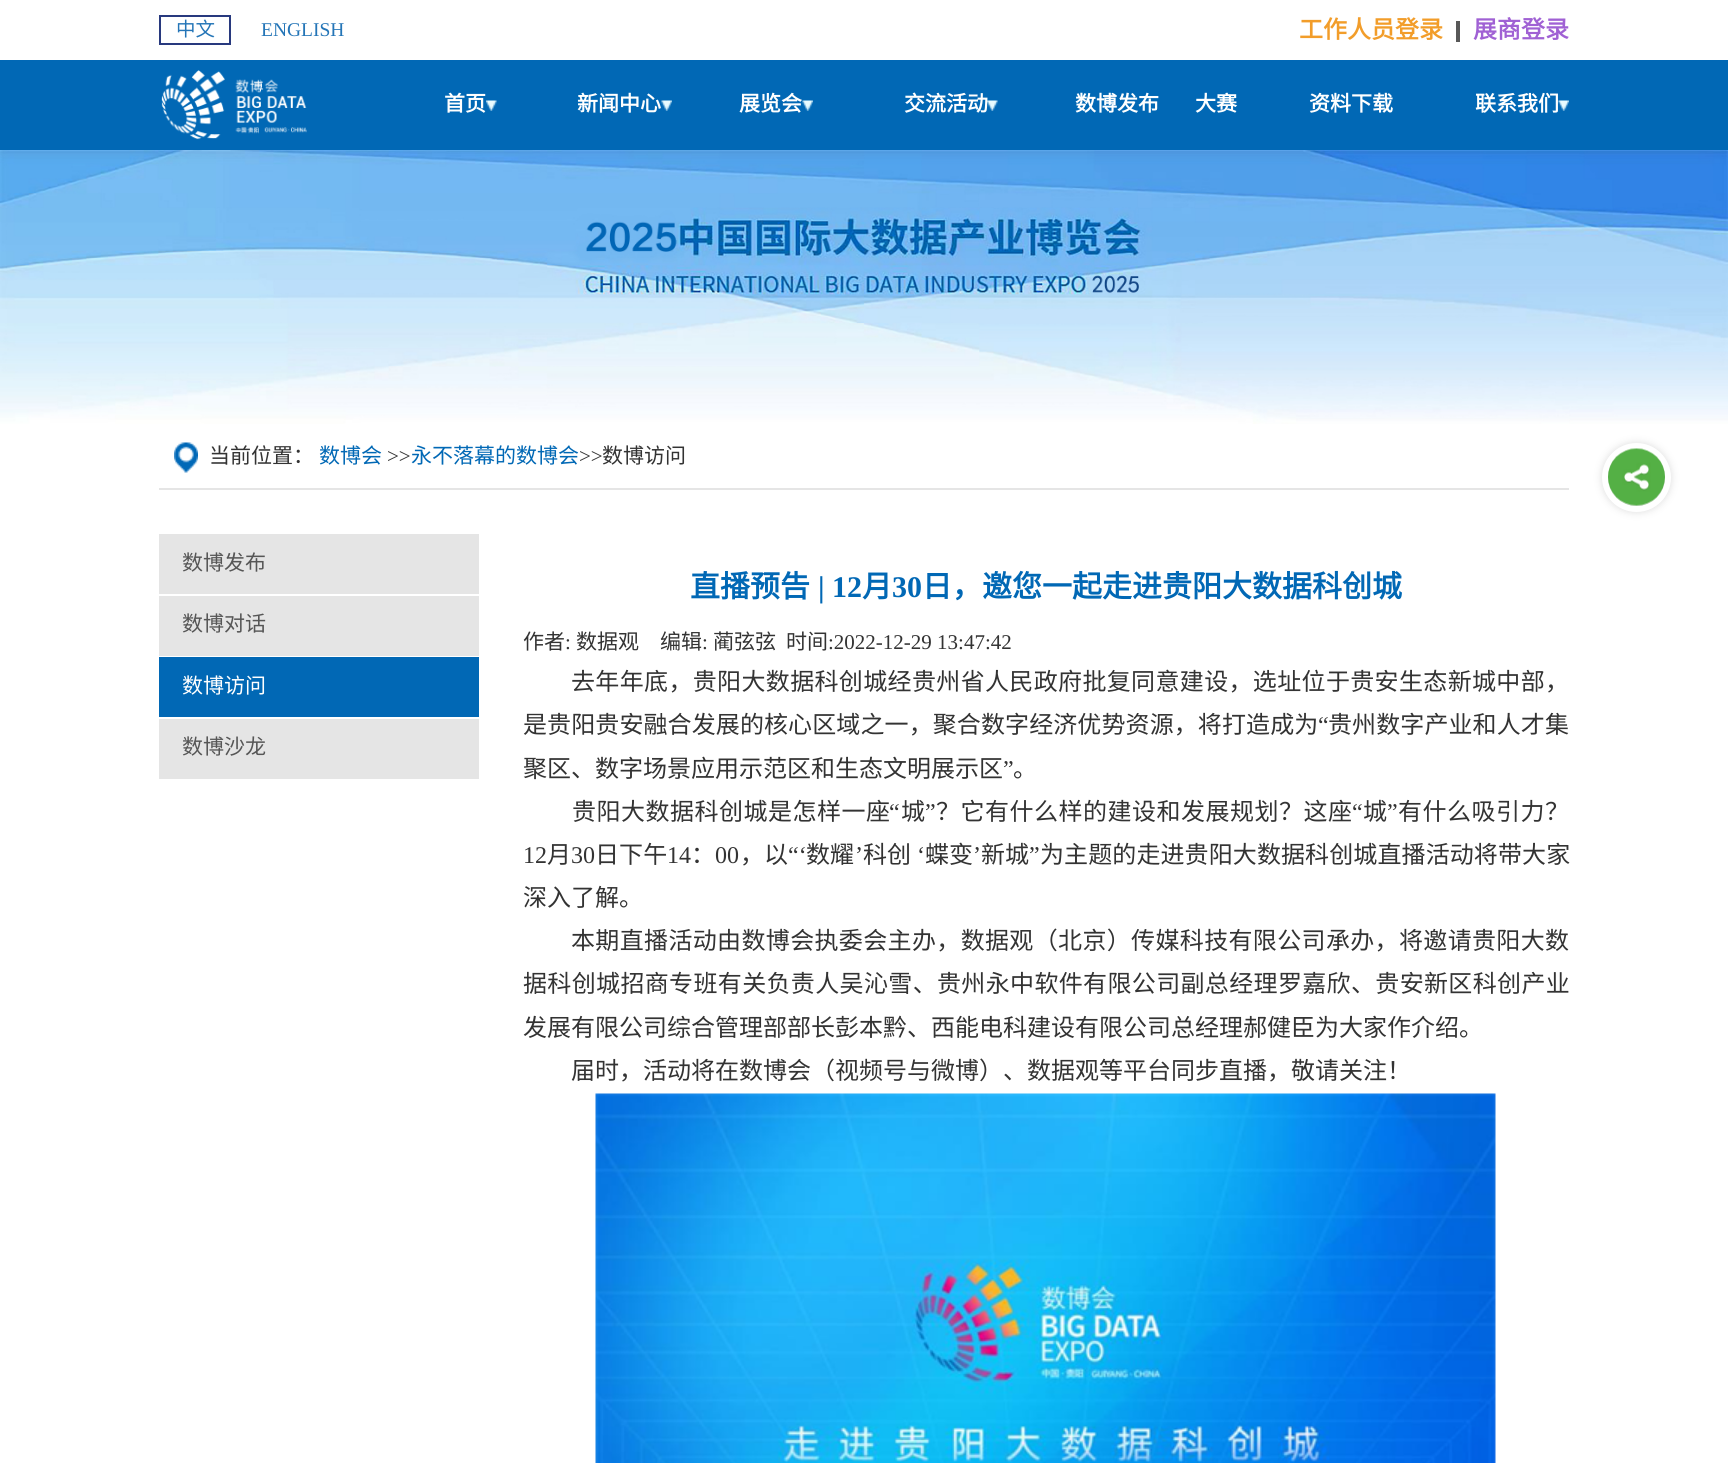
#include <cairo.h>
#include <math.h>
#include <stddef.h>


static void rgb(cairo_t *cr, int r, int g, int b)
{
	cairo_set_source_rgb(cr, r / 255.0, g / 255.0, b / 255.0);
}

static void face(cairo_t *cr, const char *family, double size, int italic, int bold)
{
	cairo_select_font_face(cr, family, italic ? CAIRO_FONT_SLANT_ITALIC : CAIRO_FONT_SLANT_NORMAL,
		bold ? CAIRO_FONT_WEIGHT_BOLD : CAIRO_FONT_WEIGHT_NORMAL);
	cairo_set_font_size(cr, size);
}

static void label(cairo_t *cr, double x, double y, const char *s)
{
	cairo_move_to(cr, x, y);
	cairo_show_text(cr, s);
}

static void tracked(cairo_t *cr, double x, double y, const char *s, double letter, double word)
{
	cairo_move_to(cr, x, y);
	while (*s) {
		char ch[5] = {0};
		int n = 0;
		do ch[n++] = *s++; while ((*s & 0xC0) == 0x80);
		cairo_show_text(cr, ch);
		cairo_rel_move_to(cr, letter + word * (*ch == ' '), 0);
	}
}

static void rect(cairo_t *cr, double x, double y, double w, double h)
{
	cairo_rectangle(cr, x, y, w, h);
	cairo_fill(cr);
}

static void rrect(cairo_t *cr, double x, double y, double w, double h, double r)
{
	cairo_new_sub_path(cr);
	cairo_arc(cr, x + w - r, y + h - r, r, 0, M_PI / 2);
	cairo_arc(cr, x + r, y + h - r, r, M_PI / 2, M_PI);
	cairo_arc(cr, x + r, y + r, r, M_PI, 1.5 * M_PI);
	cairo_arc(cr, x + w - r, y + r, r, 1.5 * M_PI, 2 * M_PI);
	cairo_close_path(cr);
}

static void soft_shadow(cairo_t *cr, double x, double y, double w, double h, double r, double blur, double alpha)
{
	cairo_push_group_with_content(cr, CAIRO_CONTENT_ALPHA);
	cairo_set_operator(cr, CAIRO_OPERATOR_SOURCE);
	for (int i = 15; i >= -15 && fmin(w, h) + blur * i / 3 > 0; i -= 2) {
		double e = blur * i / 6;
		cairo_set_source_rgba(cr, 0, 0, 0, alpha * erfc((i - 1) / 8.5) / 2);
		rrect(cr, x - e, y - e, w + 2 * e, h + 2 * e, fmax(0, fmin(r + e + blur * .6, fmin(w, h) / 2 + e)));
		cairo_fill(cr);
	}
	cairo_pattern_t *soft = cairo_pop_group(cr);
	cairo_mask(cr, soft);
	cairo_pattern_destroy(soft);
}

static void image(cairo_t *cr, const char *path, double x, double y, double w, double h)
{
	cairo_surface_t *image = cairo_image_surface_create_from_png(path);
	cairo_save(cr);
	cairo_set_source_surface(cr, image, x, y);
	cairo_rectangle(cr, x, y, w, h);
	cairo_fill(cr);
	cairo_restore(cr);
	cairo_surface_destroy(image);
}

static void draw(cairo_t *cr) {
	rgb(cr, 255, 255, 255);
	cairo_paint(cr);
	image(cr, "image3.png", 0, 150, 1728, 274);
	rgb(cr, 0, 0, 0);
	soft_shadow(cr, 0, 0, 1728, 150, 0, 7.5, 0.1);
	rgb(cr, 1, 104, 181);
	rect(cr, 0, 60, 1728, 90);
	rgb(cr, 255, 255, 255);
	rect(cr, 0, 0, 1728, 60);
	cairo_rectangle(cr, 160, 16, 70, 28);
	rgb(cr, 40, 57, 126);
	cairo_stroke(cr);
	face(cr, "Noto Sans CJK SC", 19.5, 0, 0);
	rgb(cr, 36, 117, 183);
	label(cr, 176, 36, "中文");
	face(cr, "Liberation Serif", 19.5, 0, 0);
	label(cr, 261, 36, "ENGLISH");
	face(cr, "Noto Sans CJK SC", 24, 0, 1);
	rgb(cr, 242, 157, 42);
	label(cr, 1299, 38, "工作人员登录");
	rgb(cr, 88, 88, 88);
	rect(cr, 1456, 21, 4, 21);
	rgb(cr, 160, 97, 212);
	label(cr, 1473, 38, "展商登录");
	image(cr, "image0.png", 161, 70, 146, 70);
	face(cr, "Noto Sans CJK SC", 21, 0, 1);
	rgb(cr, 255, 255, 255);
	label(cr, 444, 111, "首页");
	image(cr, "image1.png", 486, 100, 11, 11);
	label(cr, 577, 111, "新闻中心");
	image(cr, "image2.png", 661, 100, 11, 11);
	label(cr, 739, 111, "展览会");
	image(cr, "image2.png", 802, 100, 11, 11);
	label(cr, 904, 111, "交流活动");
	image(cr, "image1.png", 987, 100, 11, 11);
	label(cr, 1075, 111, "数博发布");
	label(cr, 1195, 111, "大赛");
	label(cr, 1309, 111, "资料下载");
	label(cr, 1475, 111, "联系我们");
	image(cr, "image2.png", 1558, 100, 11, 11);
	rgb(cr, 229, 229, 229);
	rect(cr, 159, 488, 1410, 2);
	image(cr, "image4.png", 174, 442, 24, 31);
	face(cr, "Noto Sans CJK SC", 21, 0, 0);
	rgb(cr, 51, 51, 51);
	label(cr, 209, 463, "当前位置：");
	rgb(cr, 1, 104, 181);
	label(cr, 319, 463, "数博会");
	face(cr, "Liberation Serif", 21, 0, 0);
	rgb(cr, 51, 51, 51);
	label(cr, 387, 463, ">>");
	face(cr, "Noto Sans CJK SC", 21, 0, 0);
	rgb(cr, 1, 104, 181);
	label(cr, 411, 463, "永不落幕的数博会");
	face(cr, "Liberation Serif", 21, 0, 0);
	rgb(cr, 51, 51, 51);
	label(cr, 579, 463, ">>");
	face(cr, "Noto Sans CJK SC", 21, 0, 0);
	label(cr, 602, 463, "数博访问");
	rgb(cr, 221, 221, 221);
	soft_shadow(cr, 1602, 443, 69, 69, 34.5, 4, 1);
	cairo_arc(cr, 1636.5, 477.5, 31.5, 0, 2 * M_PI);
	rgb(cr, 255, 255, 255);
	cairo_set_line_width(cr, 6);
	cairo_stroke(cr);
	image(cr, "image5.png", 1608, 448, 57, 58);
	rgb(cr, 229, 229, 229);
	rect(cr, 159, 534, 320, 245);
	rgb(cr, 255, 255, 255);
	rect(cr, 159, 594, 320, 2);
	rgb(cr, 86, 86, 86);
	label(cr, 182, 570, "数博发布");
	rgb(cr, 255, 255, 255);
	rect(cr, 159, 656, 320, 1);
	rgb(cr, 86, 86, 86);
	label(cr, 182, 631, "数博对话");
	rgb(cr, 255, 255, 255);
	rect(cr, 159, 717, 320, 2);
	rgb(cr, 1, 104, 181);
	rect(cr, 159, 657, 320, 60);
	rgb(cr, 255, 255, 255);
	label(cr, 182, 693, "数博访问");
	rgb(cr, 86, 86, 86);
	label(cr, 182, 754, "数博沙龙");
	face(cr, "Noto Sans CJK SC", 30, 0, 1);
	rgb(cr, 1, 104, 181);
	label(cr, 690, 597, "直播预告");
	face(cr, "Liberation Serif", 30, 0, 1);
	label(cr, 818, 597, "| 12");
	face(cr, "Noto Sans CJK SC", 30, 0, 1);
	label(cr, 862, 597, "月");
	face(cr, "Liberation Serif", 30, 0, 1);
	label(cr, 892, 597, "30");
	face(cr, "Noto Sans CJK SC", 30, 0, 1);
	label(cr, 922, 597, "日，邀您一起走进贵阳大数据科创城");
	face(cr, "Noto Sans CJK SC", 21, 0, 0);
	rgb(cr, 51, 51, 51);
	label(cr, 523, 649, "作者");
	face(cr, "Liberation Serif", 21, 0, 0);
	label(cr, 565, 649, ":");
	face(cr, "Noto Sans CJK SC", 21, 0, 0);
	label(cr, 576, 649, "数据观");
	label(cr, 660, 649, "编辑");
	face(cr, "Liberation Serif", 21, 0, 0);
	label(cr, 702, 649, ":");
	face(cr, "Noto Sans CJK SC", 21, 0, 0);
	label(cr, 713, 649, "蔺弦弦");
	label(cr, 786, 649, "时间");
	face(cr, "Liberation Serif", 21, 0, 0);
	label(cr, 828, 649, ":2022-12-29 13:47:42");
	face(cr, "Noto Sans CJK SC", 24, 0, 0);
	tracked(cr, 571, 690, "去年年底，贵阳大数据科创城经贵州省人民政府批复同意建设，选址位于贵安生态新城中部，", 0.35, 0);
	tracked(cr, 523, 733, "是贵阳贵安融合发展的核心区域之一，聚合数字经济优势资源，将打造成为", 0.1, 0);
	face(cr, "Liberation Serif", 24, 0, 0);
	tracked(cr, 1318, 733, "“", 0.1, 0);
	face(cr, "Noto Sans CJK SC", 24, 0, 0);
	tracked(cr, 1328, 733, "贵州数字产业和人才集", 0.1, 0);
	label(cr, 523, 777, "聚区、数字场景应用示范区和生态文明展示区");
	face(cr, "Liberation Serif", 24, 0, 0);
	label(cr, 1003, 777, "”");
	face(cr, "Noto Sans CJK SC", 24, 0, 0);
	label(cr, 1013, 777, "。");
	tracked(cr, 572, 820, "贵阳大数据科创城是怎样一座", 0.5, 0);
	face(cr, "Liberation Serif", 24, 0, 0);
	tracked(cr, 889, 820, "“", 0.5, 0);
	face(cr, "Noto Sans CJK SC", 24, 0, 0);
	tracked(cr, 901, 820, "城", 0.5, 0);
	face(cr, "Liberation Serif", 24, 0, 0);
	tracked(cr, 925, 820, "”", 0.5, 0);
	face(cr, "Noto Sans CJK SC", 24, 0, 0);
	tracked(cr, 936, 820, "？它有什么样的建设和发展规划？这座", 0.5, 0);
	face(cr, "Liberation Serif", 24, 0, 0);
	tracked(cr, 1352, 820, "“", 0.5, 0);
	face(cr, "Noto Sans CJK SC", 24, 0, 0);
	tracked(cr, 1363, 820, "城", 0.5, 0);
	face(cr, "Liberation Serif", 24, 0, 0);
	tracked(cr, 1387, 820, "”", 0.5, 0);
	face(cr, "Noto Sans CJK SC", 24, 0, 0);
	tracked(cr, 1398, 820, "有什么吸引力？", 0.5, 0);
	face(cr, "Liberation Serif", 24, 0, 0);
	tracked(cr, 523, 863, "12", 0.1, 0);
	face(cr, "Noto Sans CJK SC", 24, 0, 0);
	tracked(cr, 547, 863, "月", 0.1, 0);
	face(cr, "Liberation Serif", 24, 0, 0);
	tracked(cr, 571, 863, "30", 0.1, 0);
	face(cr, "Noto Sans CJK SC", 24, 0, 0);
	tracked(cr, 595, 863, "日下午", 0.1, 0);
	face(cr, "Liberation Serif", 24, 0, 0);
	tracked(cr, 667, 863, "14", 0.1, 0);
	face(cr, "Noto Sans CJK SC", 24, 0, 0);
	tracked(cr, 691, 863, "：", 0.1, 0);
	face(cr, "Liberation Serif", 24, 0, 0);
	tracked(cr, 715, 863, "00", 0.1, 0);
	face(cr, "Noto Sans CJK SC", 24, 0, 0);
	tracked(cr, 740, 863, "，以", 0.1, 0);
	face(cr, "Liberation Serif", 24, 0, 0);
	tracked(cr, 788, 863, "“‘", 0.1, 0);
	face(cr, "Noto Sans CJK SC", 24, 0, 0);
	tracked(cr, 806, 863, "数耀", 0.1, 0);
	face(cr, "Liberation Serif", 24, 0, 0);
	tracked(cr, 855, 863, "’", 0.1, 0);
	face(cr, "Noto Sans CJK SC", 24, 0, 0);
	tracked(cr, 863, 863, "科创", 0.1, 0);
	face(cr, "Liberation Serif", 24, 0, 0);
	tracked(cr, 917, 863, "‘", 0.1, 0);
	face(cr, "Noto Sans CJK SC", 24, 0, 0);
	tracked(cr, 925, 863, "蝶变", 0.1, 0);
	face(cr, "Liberation Serif", 24, 0, 0);
	tracked(cr, 973, 863, "’", 0.1, 0);
	face(cr, "Noto Sans CJK SC", 24, 0, 0);
	tracked(cr, 981, 863, "新城", 0.1, 0);
	face(cr, "Liberation Serif", 24, 0, 0);
	tracked(cr, 1029, 863, "”", 0.1, 0);
	face(cr, "Noto Sans CJK SC", 24, 0, 0);
	tracked(cr, 1040, 863, "为主题的走进贵阳大数据科创城直播活动将带大家", 0.1, 0);
	label(cr, 523, 906, "深入了解。");
	tracked(cr, 571, 949, "本期直播活动由数博会执委会主办，数据观（北京）传媒科技有限公司承办，将邀请贵阳大数", 0.35, 0);
	tracked(cr, 523, 992, "据科创城招商专班有关负责人吴沁雪、贵州永中软件有限公司副总经理罗嘉欣、贵安新区科创产业", 0.35, 0);
	label(cr, 523, 1036, "发展有限公司综合管理部部长彭本黔、西能电科建设有限公司总经理郝健臣为大家作介绍。");
	label(cr, 571, 1079, "届时，活动将在数博会（视频号与微博）、数据观等平台同步直播，敬请关注！");
	image(cr, "image6.png", 595, 1093, 901, 370);
}

int main(void) {
	cairo_surface_t *surface = cairo_image_surface_create(CAIRO_FORMAT_RGB24, 1728, 1463);
	cairo_t *cr = cairo_create(surface);
	cairo_font_options_t *options = cairo_font_options_create();
	cairo_font_options_set_hint_metrics(options, CAIRO_HINT_METRICS_OFF);
	cairo_font_options_set_hint_style(options, CAIRO_HINT_STYLE_NONE);
	cairo_set_font_options(cr, options);
	cairo_set_miter_limit(cr, 4);
	draw(cr);
	cairo_surface_write_to_png(surface, "render.png");
	cairo_font_options_destroy(options);
	cairo_destroy(cr);
	cairo_surface_destroy(surface);
	return 0;
}
